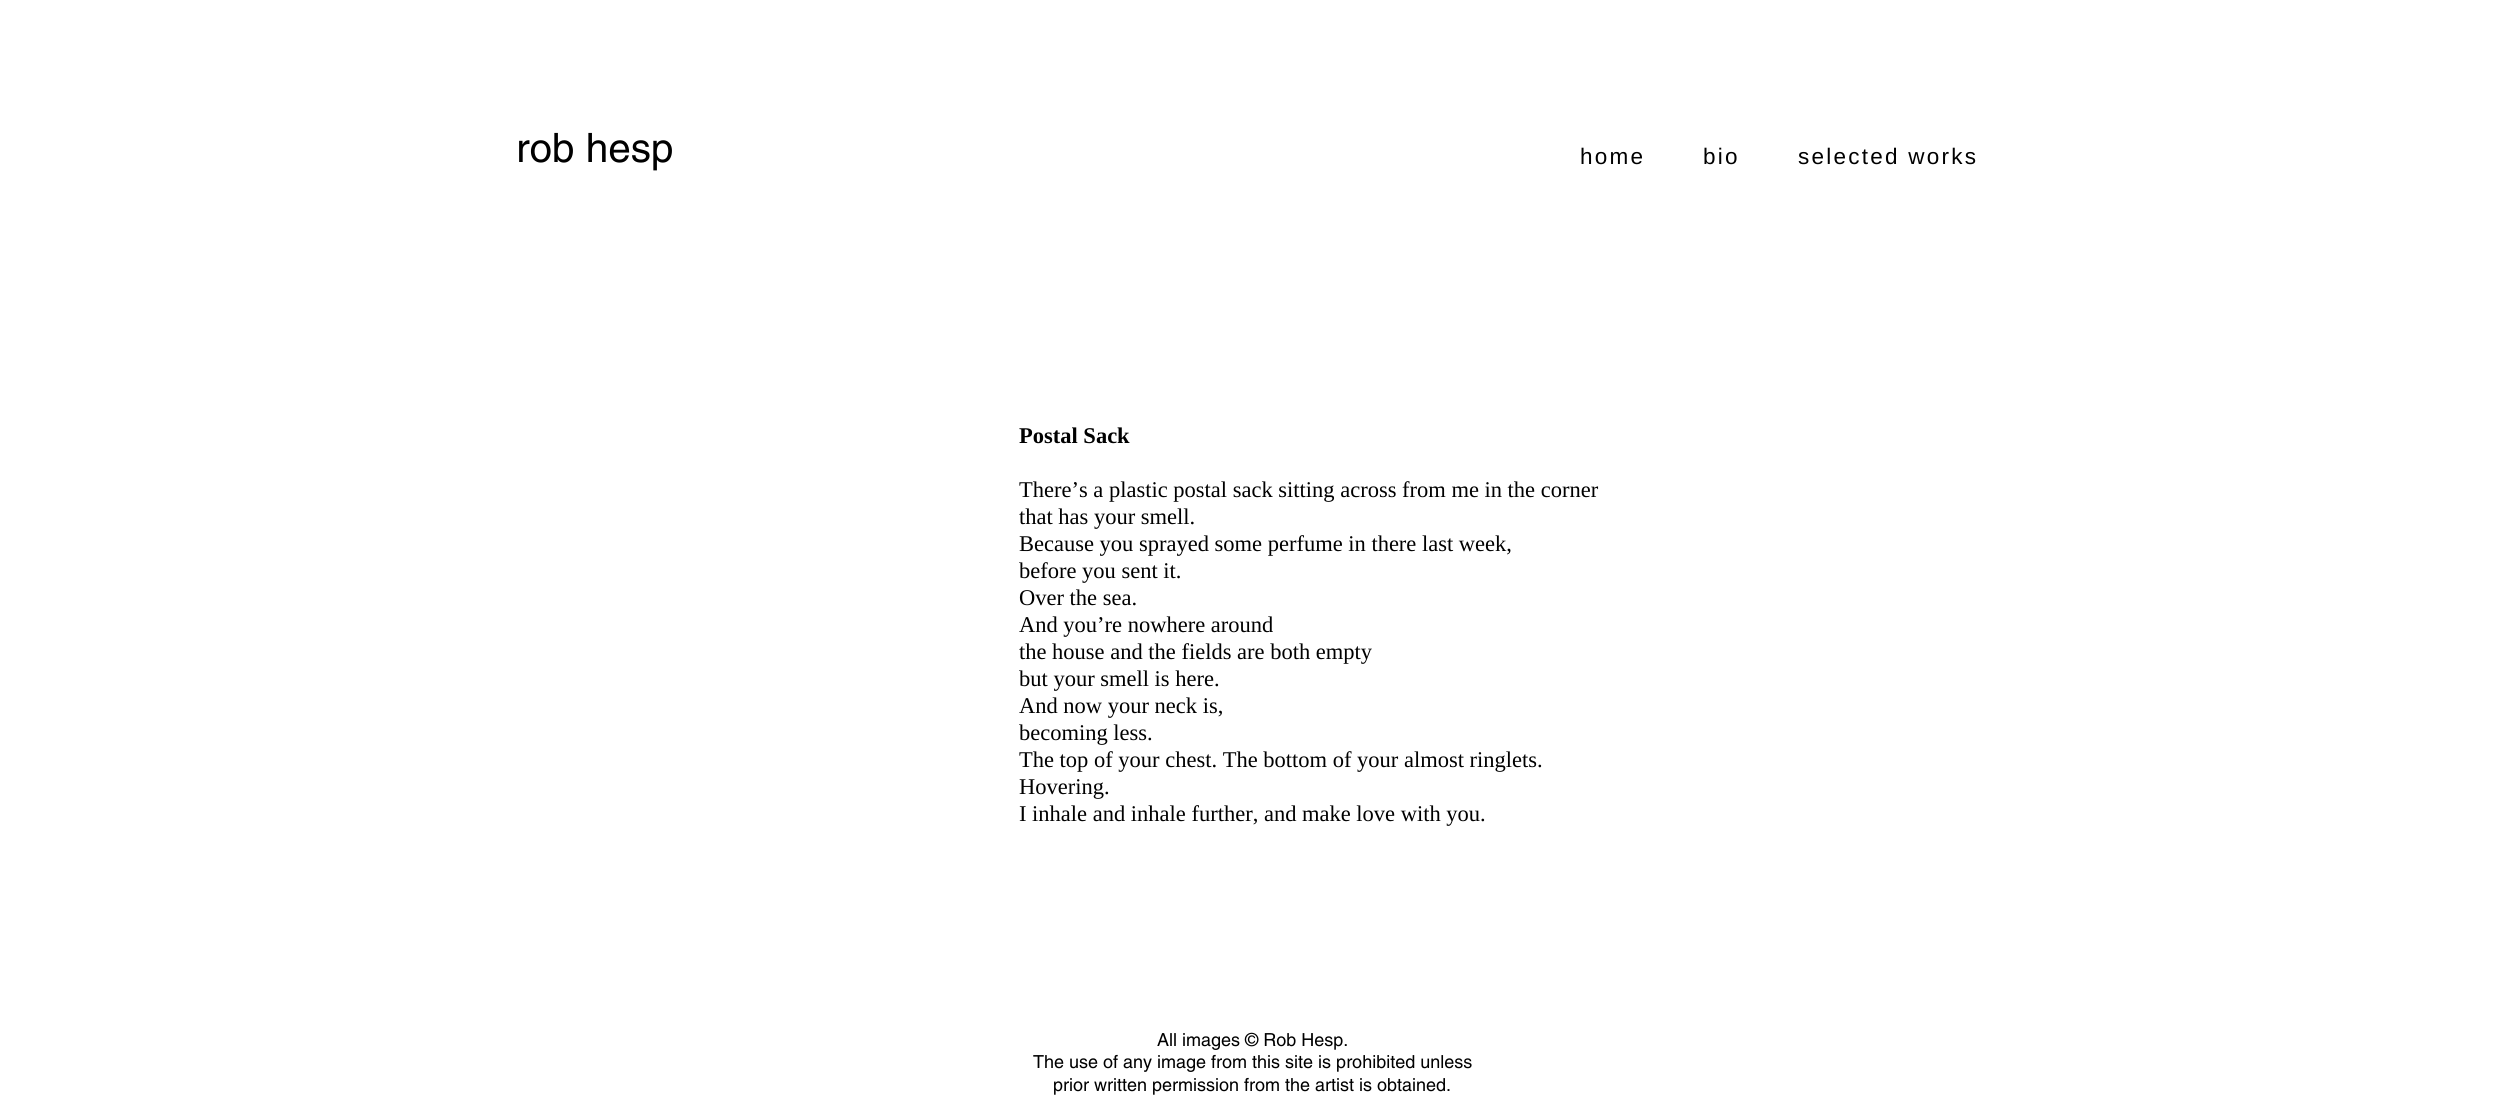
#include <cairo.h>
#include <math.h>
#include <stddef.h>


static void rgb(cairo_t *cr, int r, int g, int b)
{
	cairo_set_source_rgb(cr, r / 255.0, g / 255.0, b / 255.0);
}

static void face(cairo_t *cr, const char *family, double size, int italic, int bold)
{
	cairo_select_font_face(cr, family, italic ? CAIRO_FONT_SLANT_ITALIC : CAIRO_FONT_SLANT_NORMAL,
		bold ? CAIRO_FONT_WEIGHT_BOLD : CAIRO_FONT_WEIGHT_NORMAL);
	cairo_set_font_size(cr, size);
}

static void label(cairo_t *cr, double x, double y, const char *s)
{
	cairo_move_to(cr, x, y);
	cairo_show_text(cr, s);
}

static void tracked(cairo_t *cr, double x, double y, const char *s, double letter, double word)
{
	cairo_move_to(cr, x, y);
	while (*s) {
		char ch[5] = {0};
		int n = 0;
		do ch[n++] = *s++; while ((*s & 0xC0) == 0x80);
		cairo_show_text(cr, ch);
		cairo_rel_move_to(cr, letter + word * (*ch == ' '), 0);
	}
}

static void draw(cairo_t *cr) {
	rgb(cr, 255, 255, 255);
	cairo_paint(cr);
	face(cr, "helvetica", 40.5, 0, 0);
	rgb(cr, 0, 0, 0);
	label(cr, 516, 162, "rob hesp");
	face(cr, "Liberation Sans", 22.5, 0, 0);
	tracked(cr, 1580, 164, "home", 2.25, 0);
	tracked(cr, 1703, 164, "bio", 2.25, 0);
	tracked(cr, 1798, 164, "selected works", 2.25, 0);
	face(cr, "Liberation Serif", 22.5, 0, 1);
	label(cr, 1019, 443, "Postal Sack");
	face(cr, "Liberation Serif", 22.5, 0, 0);
	label(cr, 1019, 497, "There’s a plastic postal sack sitting across from me in the corner");
	label(cr, 1019, 524, "that has your smell.");
	label(cr, 1019, 551, "Because you sprayed some perfume in there last week,");
	label(cr, 1019, 578, "before you sent it.");
	label(cr, 1019, 605, "Over the sea.");
	label(cr, 1019, 632, "And you’re nowhere around");
	label(cr, 1019, 659, "the house and the fields are both empty");
	label(cr, 1019, 686, "but your smell is here.");
	label(cr, 1019, 713, "And now your neck is,");
	label(cr, 1019, 740, "becoming less.");
	label(cr, 1019, 767, "The top of your chest. The bottom of your almost ringlets.");
	label(cr, 1019, 794, "Hovering.");
	label(cr, 1019, 821, "I inhale and inhale further, and make love with you.");
	face(cr, "helvetica", 18, 0, 0);
	label(cr, 1157, 1046, "All images © Rob Hesp.");
	label(cr, 1033, 1068, "The use of any image from this site is prohibited unless");
	label(cr, 1053, 1091, "prior written permission from the artist is obtained.");
}

int main(void) {
	cairo_surface_t *surface = cairo_image_surface_create(CAIRO_FORMAT_RGB24, 2501, 1100);
	cairo_t *cr = cairo_create(surface);
	cairo_font_options_t *options = cairo_font_options_create();
	cairo_font_options_set_hint_metrics(options, CAIRO_HINT_METRICS_OFF);
	cairo_font_options_set_hint_style(options, CAIRO_HINT_STYLE_NONE);
	cairo_set_font_options(cr, options);
	cairo_set_miter_limit(cr, 4);
	draw(cr);
	cairo_surface_write_to_png(surface, "render.png");
	cairo_font_options_destroy(options);
	cairo_destroy(cr);
	cairo_surface_destroy(surface);
	return 0;
}
